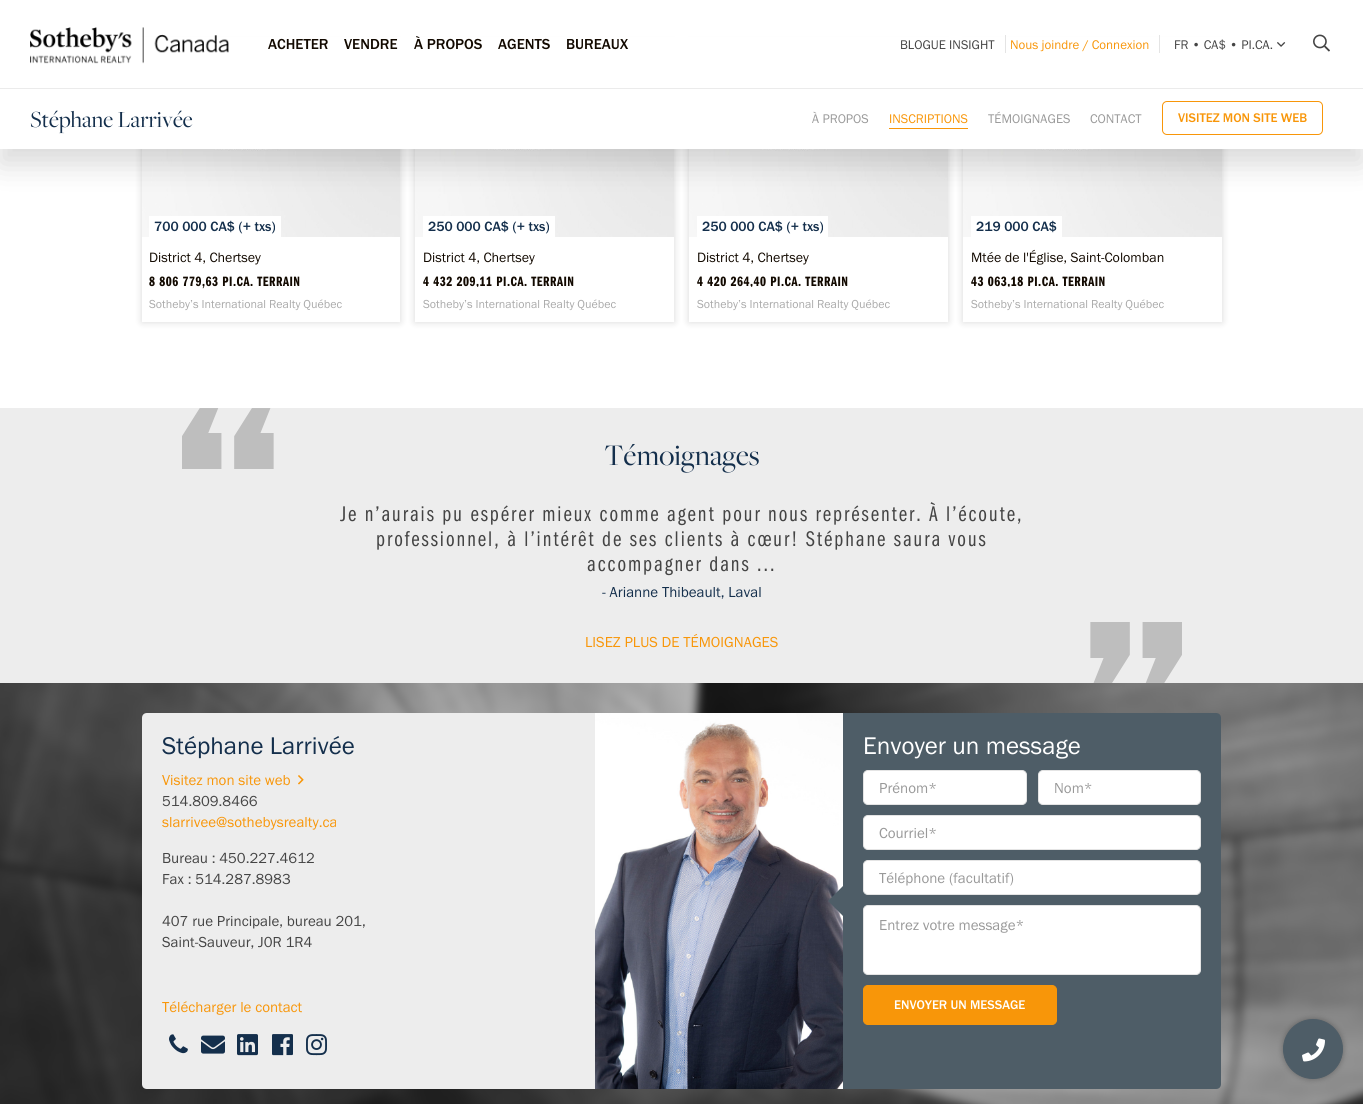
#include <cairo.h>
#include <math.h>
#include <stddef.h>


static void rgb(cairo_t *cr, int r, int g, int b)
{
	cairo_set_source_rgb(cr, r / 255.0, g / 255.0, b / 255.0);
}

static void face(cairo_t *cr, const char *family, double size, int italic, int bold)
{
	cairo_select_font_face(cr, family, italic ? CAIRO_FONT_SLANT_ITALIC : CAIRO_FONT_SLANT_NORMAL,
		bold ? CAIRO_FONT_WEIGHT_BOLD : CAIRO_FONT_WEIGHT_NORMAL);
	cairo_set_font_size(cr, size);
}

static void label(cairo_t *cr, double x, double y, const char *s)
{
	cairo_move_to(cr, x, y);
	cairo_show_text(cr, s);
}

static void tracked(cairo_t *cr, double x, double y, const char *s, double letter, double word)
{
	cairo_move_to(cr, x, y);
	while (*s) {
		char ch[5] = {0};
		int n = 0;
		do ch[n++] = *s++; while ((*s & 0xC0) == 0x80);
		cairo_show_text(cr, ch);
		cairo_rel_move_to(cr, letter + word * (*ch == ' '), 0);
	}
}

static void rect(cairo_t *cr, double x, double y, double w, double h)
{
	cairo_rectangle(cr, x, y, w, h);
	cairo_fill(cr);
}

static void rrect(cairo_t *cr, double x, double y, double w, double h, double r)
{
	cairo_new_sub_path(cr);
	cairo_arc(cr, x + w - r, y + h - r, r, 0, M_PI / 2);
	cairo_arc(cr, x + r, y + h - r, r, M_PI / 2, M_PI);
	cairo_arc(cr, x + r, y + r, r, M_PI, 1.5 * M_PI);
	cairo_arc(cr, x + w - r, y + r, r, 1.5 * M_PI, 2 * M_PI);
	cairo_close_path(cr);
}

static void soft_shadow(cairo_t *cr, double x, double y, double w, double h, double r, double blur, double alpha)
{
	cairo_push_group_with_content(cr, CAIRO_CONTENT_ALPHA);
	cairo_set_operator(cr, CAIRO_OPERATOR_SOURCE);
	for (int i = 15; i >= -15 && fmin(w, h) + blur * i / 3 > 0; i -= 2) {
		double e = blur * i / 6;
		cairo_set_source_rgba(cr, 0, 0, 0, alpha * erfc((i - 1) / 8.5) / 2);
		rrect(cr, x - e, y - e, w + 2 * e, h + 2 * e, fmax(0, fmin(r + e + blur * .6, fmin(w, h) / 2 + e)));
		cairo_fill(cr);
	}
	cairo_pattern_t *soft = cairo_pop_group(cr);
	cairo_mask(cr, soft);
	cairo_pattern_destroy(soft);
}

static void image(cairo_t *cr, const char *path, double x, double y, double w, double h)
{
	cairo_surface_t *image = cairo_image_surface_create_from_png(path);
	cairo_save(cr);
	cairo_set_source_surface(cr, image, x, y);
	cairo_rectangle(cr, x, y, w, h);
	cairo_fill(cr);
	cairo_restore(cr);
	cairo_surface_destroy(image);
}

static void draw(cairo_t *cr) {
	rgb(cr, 255, 255, 255);
	cairo_paint(cr);
	cairo_save(cr);
	cairo_set_fill_rule(cr, CAIRO_FILL_RULE_EVEN_ODD);
	cairo_new_path(cr);
	cairo_move_to(cr, 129, 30);
	cairo_line_to(cr, 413, 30);
	cairo_line_to(cr, 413, 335);
	cairo_line_to(cr, 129, 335);
	cairo_close_path(cr);
	cairo_move_to(cr, 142, 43);
	cairo_line_to(cr, 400, 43);
	cairo_line_to(cr, 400, 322);
	cairo_line_to(cr, 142, 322);
	cairo_close_path(cr);
	cairo_clip(cr);
	rgb(cr, 0, 0, 0);
	soft_shadow(cr, 142, 43, 258, 279, 0, 4, 0.15);
	cairo_restore(cr);
	image(cr, "image3.png", 142, 149, 258, 88);
	cairo_save(cr);
	cairo_set_fill_rule(cr, CAIRO_FILL_RULE_EVEN_ODD);
	cairo_new_path(cr);
	cairo_move_to(cr, 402, 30);
	cairo_line_to(cr, 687, 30);
	cairo_line_to(cr, 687, 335);
	cairo_line_to(cr, 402, 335);
	cairo_close_path(cr);
	cairo_move_to(cr, 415, 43);
	cairo_line_to(cr, 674, 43);
	cairo_line_to(cr, 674, 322);
	cairo_line_to(cr, 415, 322);
	cairo_close_path(cr);
	cairo_clip(cr);
	rgb(cr, 0, 0, 0);
	soft_shadow(cr, 415, 43, 259, 279, 0, 4, 0.15);
	cairo_restore(cr);
	image(cr, "image4.png", 415, 149, 259, 88);
	cairo_save(cr);
	cairo_set_fill_rule(cr, CAIRO_FILL_RULE_EVEN_ODD);
	cairo_new_path(cr);
	cairo_move_to(cr, 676, 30);
	cairo_line_to(cr, 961, 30);
	cairo_line_to(cr, 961, 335);
	cairo_line_to(cr, 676, 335);
	cairo_close_path(cr);
	cairo_move_to(cr, 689, 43);
	cairo_line_to(cr, 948, 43);
	cairo_line_to(cr, 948, 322);
	cairo_line_to(cr, 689, 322);
	cairo_close_path(cr);
	cairo_clip(cr);
	rgb(cr, 0, 0, 0);
	soft_shadow(cr, 689, 43, 259, 279, 0, 4, 0.15);
	cairo_restore(cr);
	image(cr, "image4.png", 689, 149, 259, 88);
	cairo_save(cr);
	cairo_set_fill_rule(cr, CAIRO_FILL_RULE_EVEN_ODD);
	cairo_new_path(cr);
	cairo_move_to(cr, 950, 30);
	cairo_line_to(cr, 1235, 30);
	cairo_line_to(cr, 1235, 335);
	cairo_line_to(cr, 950, 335);
	cairo_close_path(cr);
	cairo_move_to(cr, 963, 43);
	cairo_line_to(cr, 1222, 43);
	cairo_line_to(cr, 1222, 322);
	cairo_line_to(cr, 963, 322);
	cairo_close_path(cr);
	cairo_clip(cr);
	rgb(cr, 0, 0, 0);
	soft_shadow(cr, 963, 43, 259, 279, 0, 4, 0.15);
	cairo_restore(cr);
	image(cr, "image4.png", 963, 149, 259, 88);
	rgb(cr, 0, 0, 0);
	soft_shadow(cr, 0, 104, 1363, 60, 0, 15, 0.15);
	rgb(cr, 255, 255, 255);
	rect(cr, 0, 37, 1363, 51);
	rgb(cr, 235, 235, 235);
	rect(cr, 0, 88, 1363, 1);
	image(cr, "image0.png", 30, 27, 199, 37);
	face(cr, "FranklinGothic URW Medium", 15, 0, 0);
	rgb(cr, 18, 9, 0);
	label(cr, 268, 49, "ACHETER");
	label(cr, 344, 49, "VENDRE");
	label(cr, 414, 49, "À PROPOS");
	label(cr, 498, 49, "AGENTS");
	label(cr, 566, 49, "BUREAUX");
	face(cr, "FranklinGothic URW", 13, 0, 0);
	rgb(cr, 68, 68, 68);
	label(cr, 900, 49, "BLOGUE INSIGHT");
	rgb(cr, 228, 228, 228);
	rect(cr, 1005, 35, 1, 18);
	rgb(cr, 248, 150, 9);
	label(cr, 1010, 49, "Nous joindre / Connexion");
	rgb(cr, 228, 228, 228);
	rect(cr, 1159, 35, 1, 18);
	rgb(cr, 68, 68, 68);
	label(cr, 1174, 49, "FR • CA$ • PI.CA.");
	image(cr, "image1.png", 1277, 42, 9, 5);
	image(cr, "image2.png", 1313, 34, 17, 18);
	rgb(cr, 255, 255, 255);
	rect(cr, 0, 89, 1363, 60);
	face(cr, "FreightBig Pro", 24, 0, 0);
	rgb(cr, 20, 47, 76);
	label(cr, 30, 127, "Stéphane Larrivée");
	face(cr, "FranklinGothic URW", 13, 0, 0);
	rgb(cr, 153, 153, 153);
	label(cr, 812, 123, "À PROPOS");
	rgb(cr, 248, 150, 9);
	label(cr, 889, 123, "INSCRIPTIONS");
	rect(cr, 889, 128, 79, 1);
	rgb(cr, 153, 153, 153);
	label(cr, 988, 123, "TÉMOIGNAGES");
	label(cr, 1090, 123, "CONTACT");
	rrect(cr, 1162.5, 101.5, 160, 33, 4.5);
	rgb(cr, 248, 150, 9);
	cairo_set_line_width(cr, 1);
	cairo_stroke(cr);
	face(cr, "FranklinGothic URW Medium", 13, 0, 0);
	label(cr, 1178, 122, "VISITEZ MON SITE WEB");
	rgb(cr, 255, 255, 255);
	rect(cr, 149, 216, 132, 21);
	face(cr, "FranklinGothic URW Medium", 14, 0, 0);
	rgb(cr, 20, 47, 76);
	label(cr, 154, 231, "700 000 CA$ (+ txs)");
	face(cr, "FranklinGothic URW", 14, 0, 0);
	rgb(cr, 18, 9, 0);
	label(cr, 149, 262, "District 4, Chertsey");
	face(cr, "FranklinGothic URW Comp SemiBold", 14, 0, 0);
	tracked(cr, 149, 286, "8 806 779,63 PI.CA. TERRAIN", 0.5, 0);
	face(cr, "FranklinGothic URW", 12, 0, 0);
	rgb(cr, 170, 170, 170);
	label(cr, 149, 308, "Sotheby’s International Realty Québec");
	rgb(cr, 255, 255, 255);
	rect(cr, 423, 216, 132, 21);
	face(cr, "FranklinGothic URW Medium", 14, 0, 0);
	rgb(cr, 20, 47, 76);
	label(cr, 428, 231, "250 000 CA$ (+ txs)");
	face(cr, "FranklinGothic URW", 14, 0, 0);
	rgb(cr, 18, 9, 0);
	label(cr, 423, 262, "District 4, Chertsey");
	cairo_save(cr);
	cairo_rectangle(cr, 415, 271, 259, 16);
	cairo_clip(cr);
	face(cr, "FranklinGothic URW Comp SemiBold", 14, 0, 0);
	tracked(cr, 423, 286, "4 432 209,11 PI.CA. TERRAIN", 0.5, 0);
	cairo_restore(cr);
	face(cr, "FranklinGothic URW", 12, 0, 0);
	rgb(cr, 170, 170, 170);
	label(cr, 423, 308, "Sotheby’s International Realty Québec");
	rgb(cr, 255, 255, 255);
	rect(cr, 697, 216, 131, 21);
	face(cr, "FranklinGothic URW Medium", 14, 0, 0);
	rgb(cr, 20, 47, 76);
	label(cr, 702, 231, "250 000 CA$ (+ txs)");
	face(cr, "FranklinGothic URW", 14, 0, 0);
	rgb(cr, 18, 9, 0);
	label(cr, 697, 262, "District 4, Chertsey");
	cairo_save(cr);
	cairo_rectangle(cr, 689, 271, 259, 16);
	cairo_clip(cr);
	face(cr, "FranklinGothic URW Comp SemiBold", 14, 0, 0);
	tracked(cr, 697, 286, "4 420 264,40 PI.CA. TERRAIN", 0.5, 0);
	cairo_restore(cr);
	face(cr, "FranklinGothic URW", 12, 0, 0);
	rgb(cr, 170, 170, 170);
	label(cr, 697, 308, "Sotheby’s International Realty Québec");
	rgb(cr, 255, 255, 255);
	rect(cr, 971, 216, 91, 21);
	face(cr, "FranklinGothic URW Medium", 14, 0, 0);
	rgb(cr, 20, 47, 76);
	label(cr, 976, 231, "219 000 CA$");
	face(cr, "FranklinGothic URW", 14, 0, 0);
	rgb(cr, 18, 9, 0);
	label(cr, 971, 262, "Mtée de l'Église, Saint-Colomban");
	cairo_save(cr);
	cairo_rectangle(cr, 963, 271, 258, 16);
	cairo_clip(cr);
	face(cr, "FranklinGothic URW Comp SemiBold", 14, 0, 0);
	tracked(cr, 971, 286, "43 063,18 PI.CA. TERRAIN", 0.5, 0);
	cairo_restore(cr);
	face(cr, "FranklinGothic URW", 12, 0, 0);
	rgb(cr, 170, 170, 170);
	label(cr, 971, 308, "Sotheby’s International Realty Québec");
	rgb(cr, 237, 237, 237);
	rect(cr, 0, 408, 1363, 275);
	image(cr, "image5.png", 182, 408, 92, 61);
	face(cr, "FreightBig Pro", 31, 0, 0);
	rgb(cr, 20, 47, 76);
	label(cr, 604, 465, "Témoignages");
	face(cr, "FranklinGothic URW Comp", 22, 0, 0);
	rgb(cr, 68, 68, 68);
	tracked(cr, 340, 521, "Je n’aurais pu espérer mieux comme agent pour nous représenter. À l’écoute,", 2, 0);
	tracked(cr, 376, 546, "professionnel, à l’intérêt de ses clients à cœur! Stéphane saura vous", 2, 0);
	tracked(cr, 587, 571, "accompagner dans ...", 2, 0);
	face(cr, "FranklinGothic URW", 15, 0, 0);
	rgb(cr, 20, 47, 76);
	label(cr, 602, 597, "- Arianne Thibeault, Laval");
	rgb(cr, 248, 150, 9);
	label(cr, 585, 647, "LISEZ PLUS DE TÉMOIGNAGES");
	image(cr, "image6.png", 1090, 622, 92, 61);
	image(cr, "image7.png", 0, 683, 1363, 421);
	rgb(cr, 237, 237, 237);
	cairo_new_path(cr);
	cairo_move_to(cr, 147, 713);
	cairo_line_to(cr, 595, 713);
	cairo_line_to(cr, 595, 1089);
	cairo_line_to(cr, 147, 1089);
	cairo_curve_to(cr, 144, 1089, 142, 1087, 142, 1084);
	cairo_line_to(cr, 142, 718);
	cairo_curve_to(cr, 142, 715, 144, 713, 147, 713);
	cairo_close_path(cr);
	cairo_fill(cr);
	face(cr, "FranklinGothic URW", 25, 0, 0);
	rgb(cr, 20, 47, 76);
	label(cr, 162, 754, "Stéphane Larrivée");
	face(cr, "FranklinGothic URW", 15, 0, 0);
	rgb(cr, 248, 150, 9);
	label(cr, 162, 785, "Visitez mon site web");
	image(cr, "image8.png", 298, 775, 6, 10);
	rgb(cr, 68, 68, 68);
	label(cr, 162, 806, "514.809.8466");
	rgb(cr, 248, 150, 9);
	label(cr, 162, 827, "slarrivee@sothebysrealty.ca");
	rgb(cr, 68, 68, 68);
	label(cr, 162, 863, "Bureau : 450.227.4612");
	label(cr, 162, 884, "Fax : 514.287.8983");
	label(cr, 162, 926, "407 rue Principale, bureau 201,");
	label(cr, 162, 947, "Saint-Sauveur, J0R 1R4");
	rgb(cr, 248, 150, 9);
	label(cr, 162, 1012, "Télécharger le contact");
	image(cr, "image9.png", 169, 1034, 19, 20);
	image(cr, "image10.png", 201, 1035, 24, 19);
	image(cr, "image11.png", 237, 1034, 21, 22);
	image(cr, "image12.png", 272, 1034, 21, 22);
	image(cr, "image13.png", 306, 1034, 21, 22);
	image(cr, "image14.png", 595, 713, 248, 376);
	rgb(cr, 78, 93, 103);
	cairo_new_path(cr);
	cairo_move_to(cr, 843, 886);
	cairo_line_to(cr, 843, 916);
	cairo_line_to(cr, 828, 901);
	cairo_close_path(cr);
	cairo_fill(cr);
	cairo_new_path(cr);
	cairo_move_to(cr, 843, 713);
	cairo_line_to(cr, 1216, 713);
	cairo_curve_to(cr, 1219, 713, 1221, 715, 1221, 718);
	cairo_line_to(cr, 1221, 1084);
	cairo_curve_to(cr, 1221, 1087, 1219, 1089, 1216, 1089);
	cairo_line_to(cr, 843, 1089);
	cairo_close_path(cr);
	cairo_fill(cr);
	face(cr, "FranklinGothic URW", 25, 0, 0);
	rgb(cr, 255, 255, 255);
	label(cr, 863, 754, "Envoyer un message");
	rrect(cr, 863.5, 770.5, 163, 34, 4.5);
	cairo_fill_preserve(cr);
	rgb(cr, 228, 228, 228);
	cairo_stroke(cr);
	face(cr, "FranklinGothic URW", 15, 0, 0);
	rgb(cr, 153, 153, 153);
	label(cr, 879, 793, "Prénom*");
	rgb(cr, 255, 255, 255);
	rrect(cr, 1038.5, 770.5, 162, 34, 4.5);
	cairo_fill_preserve(cr);
	rgb(cr, 228, 228, 228);
	cairo_stroke(cr);
	rgb(cr, 153, 153, 153);
	label(cr, 1054, 793, "Nom*");
	rgb(cr, 255, 255, 255);
	rrect(cr, 863.5, 815.5, 337, 34, 4.5);
	cairo_fill_preserve(cr);
	rgb(cr, 228, 228, 228);
	cairo_stroke(cr);
	rgb(cr, 153, 153, 153);
	label(cr, 879, 838, "Courriel*");
	rgb(cr, 255, 255, 255);
	rrect(cr, 863.5, 860.5, 337, 34, 4.5);
	cairo_fill_preserve(cr);
	rgb(cr, 228, 228, 228);
	cairo_stroke(cr);
	rgb(cr, 153, 153, 153);
	label(cr, 879, 883, "Téléphone (facultatif)");
	rgb(cr, 255, 255, 255);
	rrect(cr, 863.5, 905.5, 337, 69, 4.5);
	cairo_fill_preserve(cr);
	rgb(cr, 228, 228, 228);
	cairo_stroke(cr);
	rgb(cr, 153, 153, 153);
	label(cr, 879, 930, "Entrez votre message*");
	rgb(cr, 248, 150, 9);
	rrect(cr, 863.5, 985.5, 193, 39, 4.5);
	cairo_fill_preserve(cr);
	cairo_stroke(cr);
	face(cr, "FranklinGothic URW Medium", 13, 0, 0);
	rgb(cr, 255, 255, 255);
	label(cr, 894, 1009, "ENVOYER UN MESSAGE");
	rgb(cr, 0, 0, 0);
	soft_shadow(cr, 1283, 1019, 60, 60, 30, 3, 0.3);
	rgb(cr, 78, 93, 103);
	cairo_arc(cr, 1313, 1049, 29.5, 0, 2 * M_PI);
	cairo_fill_preserve(cr);
	cairo_stroke(cr);
	image(cr, "image15.png", 1302, 1038, 23, 24);
}

int main(void) {
	cairo_surface_t *surface = cairo_image_surface_create(CAIRO_FORMAT_RGB24, 1363, 1104);
	cairo_t *cr = cairo_create(surface);
	cairo_font_options_t *options = cairo_font_options_create();
	cairo_font_options_set_hint_metrics(options, CAIRO_HINT_METRICS_OFF);
	cairo_font_options_set_hint_style(options, CAIRO_HINT_STYLE_NONE);
	cairo_set_font_options(cr, options);
	cairo_set_miter_limit(cr, 4);
	draw(cr);
	cairo_surface_write_to_png(surface, "render.png");
	cairo_font_options_destroy(options);
	cairo_destroy(cr);
	cairo_surface_destroy(surface);
	return 0;
}
